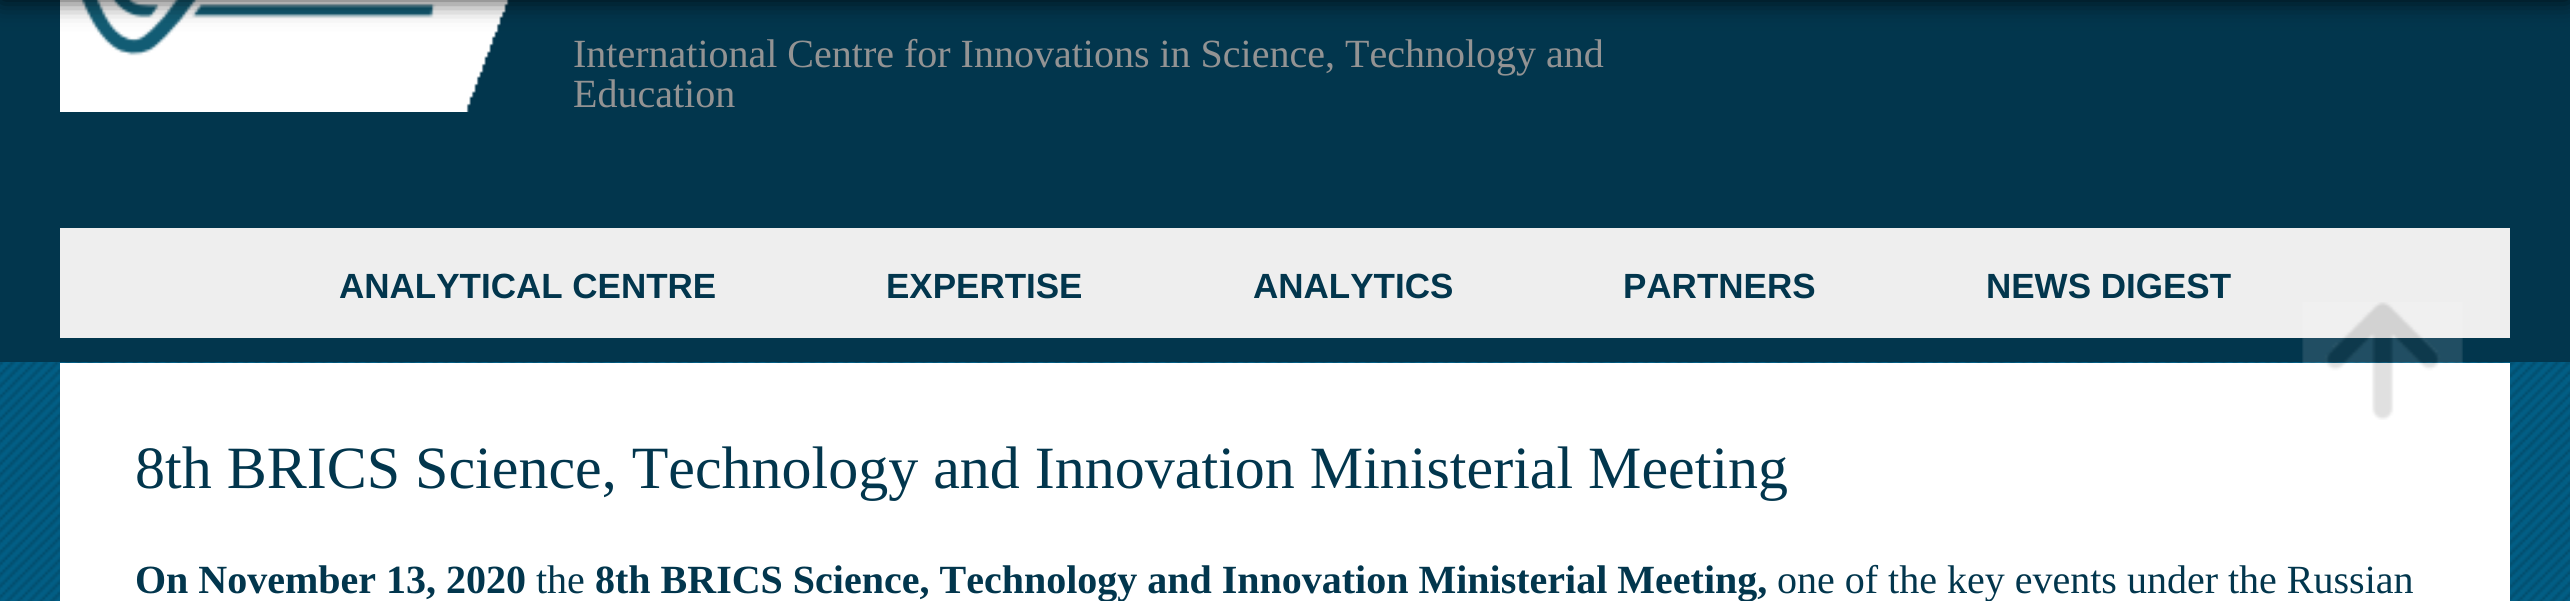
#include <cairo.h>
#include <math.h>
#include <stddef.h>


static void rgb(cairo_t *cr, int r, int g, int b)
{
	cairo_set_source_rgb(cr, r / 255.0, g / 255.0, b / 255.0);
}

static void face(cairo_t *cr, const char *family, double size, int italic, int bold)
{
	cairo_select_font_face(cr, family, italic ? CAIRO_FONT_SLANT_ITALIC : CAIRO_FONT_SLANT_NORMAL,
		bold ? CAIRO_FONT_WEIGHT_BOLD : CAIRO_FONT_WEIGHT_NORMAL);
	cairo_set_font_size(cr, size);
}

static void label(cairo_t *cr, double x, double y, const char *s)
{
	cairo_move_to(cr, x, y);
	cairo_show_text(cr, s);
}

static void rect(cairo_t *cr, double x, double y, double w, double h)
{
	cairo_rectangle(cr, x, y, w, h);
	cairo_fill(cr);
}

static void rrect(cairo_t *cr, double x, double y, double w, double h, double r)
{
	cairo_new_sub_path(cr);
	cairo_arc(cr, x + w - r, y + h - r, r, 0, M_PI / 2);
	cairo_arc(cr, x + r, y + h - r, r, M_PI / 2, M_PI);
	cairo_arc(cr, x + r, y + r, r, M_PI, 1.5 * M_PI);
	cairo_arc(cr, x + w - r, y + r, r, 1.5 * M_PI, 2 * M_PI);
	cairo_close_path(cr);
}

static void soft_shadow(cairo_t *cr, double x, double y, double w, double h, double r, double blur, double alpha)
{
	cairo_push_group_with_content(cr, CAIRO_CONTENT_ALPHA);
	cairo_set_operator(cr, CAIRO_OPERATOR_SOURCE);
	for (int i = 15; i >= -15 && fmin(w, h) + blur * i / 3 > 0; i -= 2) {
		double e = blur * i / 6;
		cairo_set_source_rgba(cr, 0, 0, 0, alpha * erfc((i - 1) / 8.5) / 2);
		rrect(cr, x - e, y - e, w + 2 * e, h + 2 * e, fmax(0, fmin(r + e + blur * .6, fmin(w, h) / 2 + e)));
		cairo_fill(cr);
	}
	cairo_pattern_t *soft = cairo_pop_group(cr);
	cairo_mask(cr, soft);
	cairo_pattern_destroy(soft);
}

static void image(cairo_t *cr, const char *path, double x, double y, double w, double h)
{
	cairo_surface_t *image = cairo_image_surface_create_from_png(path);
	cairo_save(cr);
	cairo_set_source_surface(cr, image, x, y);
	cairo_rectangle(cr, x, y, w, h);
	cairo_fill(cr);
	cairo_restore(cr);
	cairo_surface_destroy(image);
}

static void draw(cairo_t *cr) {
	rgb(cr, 2, 54, 77);
	cairo_paint(cr);
	image(cr, "image0.png", 60, 0, 449, 112);
	rgb(cr, 0, 0, 0);
	soft_shadow(cr, 0, -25, 2570, 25, 0, 12.5, 0.8);
	face(cr, "Liberation Serif", 40, 0, 0);
	rgb(cr, 147, 147, 147);
	label(cr, 573, 67, "International Centre for Innovations in Science, Technology and");
	label(cr, 573, 107, "Education");
	rgb(cr, 238, 238, 238);
	rect(cr, 60, 228, 2450, 110);
	face(cr, "Liberation Sans", 35, 0, 1);
	rgb(cr, 2, 54, 77);
	label(cr, 339, 298, "ANALYTICAL CENTRE");
	label(cr, 886, 298, "EXPERTISE");
	label(cr, 1253, 298, "ANALYTICS");
	label(cr, 1623, 298, "РARTNERS");
	label(cr, 1986, 298, "NEWS DIGEST");
	image(cr, "image2.png", 0, 362, 2570, 239);
	rgb(cr, 255, 255, 255);
	rect(cr, 60, 363, 2450, 238);
	image(cr, "image1.png", 2302, 302, 161, 118);
	face(cr, "Liberation Serif", 60, 0, 0);
	rgb(cr, 2, 54, 77);
	label(cr, 135, 488, "8th BRICS Science, Technology and Innovation Ministerial Meeting");
	face(cr, "Liberation Serif", 40, 0, 1);
	label(cr, 135, 593, "On November 13, 2020");
	face(cr, "Liberation Serif", 40, 0, 0);
	label(cr, 536, 593, "the");
	face(cr, "Liberation Serif", 40, 0, 1);
	label(cr, 595, 593, "8th BRICS Science, Technology and Innovation Ministerial Meeting,");
	face(cr, "Liberation Serif", 40, 0, 0);
	label(cr, 1777, 593, "one of the key events under the Russian");
}

int main(void) {
	cairo_surface_t *surface = cairo_image_surface_create(CAIRO_FORMAT_RGB24, 2570, 601);
	cairo_t *cr = cairo_create(surface);
	cairo_font_options_t *options = cairo_font_options_create();
	cairo_font_options_set_hint_metrics(options, CAIRO_HINT_METRICS_OFF);
	cairo_font_options_set_hint_style(options, CAIRO_HINT_STYLE_NONE);
	cairo_set_font_options(cr, options);
	cairo_set_miter_limit(cr, 4);
	draw(cr);
	cairo_surface_write_to_png(surface, "render.png");
	cairo_font_options_destroy(options);
	cairo_destroy(cr);
	cairo_surface_destroy(surface);
	return 0;
}
